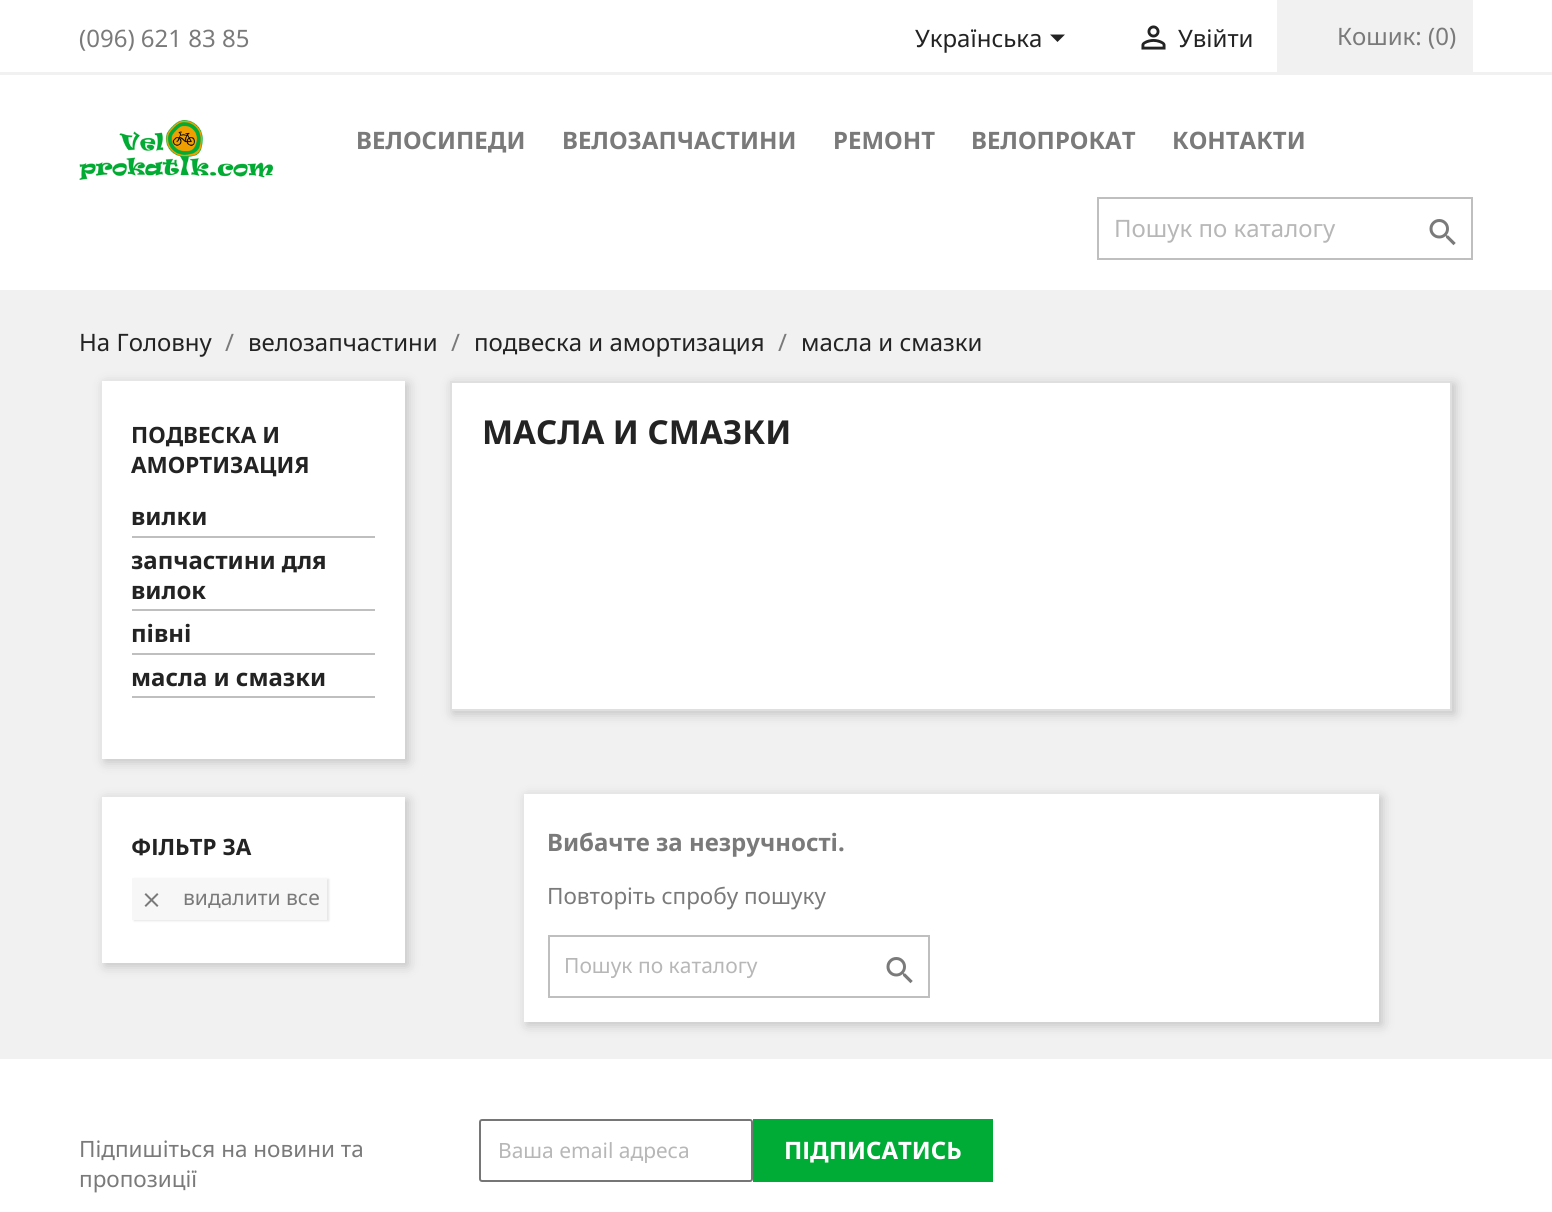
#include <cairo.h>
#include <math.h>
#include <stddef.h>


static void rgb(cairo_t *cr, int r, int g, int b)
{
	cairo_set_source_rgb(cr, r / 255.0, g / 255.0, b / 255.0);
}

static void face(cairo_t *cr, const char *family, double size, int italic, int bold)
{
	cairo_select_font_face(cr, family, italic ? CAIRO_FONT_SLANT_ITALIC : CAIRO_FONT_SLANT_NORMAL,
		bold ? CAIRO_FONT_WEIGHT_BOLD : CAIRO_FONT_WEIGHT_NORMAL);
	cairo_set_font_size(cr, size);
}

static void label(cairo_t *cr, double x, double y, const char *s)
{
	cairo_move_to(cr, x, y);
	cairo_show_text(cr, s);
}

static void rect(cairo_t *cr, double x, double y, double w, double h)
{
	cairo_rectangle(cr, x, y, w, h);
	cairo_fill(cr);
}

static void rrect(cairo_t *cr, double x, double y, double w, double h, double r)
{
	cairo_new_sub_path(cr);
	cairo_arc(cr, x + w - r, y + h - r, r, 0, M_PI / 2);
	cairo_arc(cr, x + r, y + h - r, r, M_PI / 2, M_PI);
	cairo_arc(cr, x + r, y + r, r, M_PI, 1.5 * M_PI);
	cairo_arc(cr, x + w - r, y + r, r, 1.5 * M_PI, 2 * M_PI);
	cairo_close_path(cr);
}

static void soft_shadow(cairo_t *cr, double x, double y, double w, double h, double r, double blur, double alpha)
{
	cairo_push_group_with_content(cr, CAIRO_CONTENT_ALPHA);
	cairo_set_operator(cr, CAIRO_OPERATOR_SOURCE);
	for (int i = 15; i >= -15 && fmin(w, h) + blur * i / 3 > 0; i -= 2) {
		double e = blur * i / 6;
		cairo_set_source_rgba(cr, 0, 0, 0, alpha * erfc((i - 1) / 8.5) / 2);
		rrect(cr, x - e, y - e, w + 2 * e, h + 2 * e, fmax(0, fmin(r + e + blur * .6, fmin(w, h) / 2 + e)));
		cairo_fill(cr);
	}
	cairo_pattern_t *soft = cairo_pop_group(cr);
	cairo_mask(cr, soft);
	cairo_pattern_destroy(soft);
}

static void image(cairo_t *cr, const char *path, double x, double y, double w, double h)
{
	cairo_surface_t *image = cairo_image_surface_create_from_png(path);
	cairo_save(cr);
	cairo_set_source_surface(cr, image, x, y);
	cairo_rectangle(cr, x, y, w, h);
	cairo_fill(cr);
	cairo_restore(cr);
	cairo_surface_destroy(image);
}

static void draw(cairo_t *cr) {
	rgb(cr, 255, 255, 255);
	cairo_paint(cr);
	rgb(cr, 241, 241, 241);
	rect(cr, 0, 72, 1552, 3);
	face(cr, "Noto Sans", 24, 0, 0);
	rgb(cr, 122, 122, 122);
	label(cr, 79, 47, "(096) 621 83 85");
	rgb(cr, 35, 35, 35);
	label(cr, 915, 47, "Українська");
	cairo_new_path(cr);
	cairo_move_to(cr, 1050, 34.5);
	cairo_line_to(cr, 1065, 34.5);
	cairo_line_to(cr, 1057.5, 42);
	cairo_close_path(cr);
	cairo_fill(cr);
	image(cr, "image0.png", 1141, 25, 25, 25);
	label(cr, 1178, 47, "Увійти");
	rgb(cr, 241, 241, 241);
	rect(cr, 1277, 0, 196, 72);
	rgb(cr, 122, 122, 122);
	label(cr, 1337, 45, "Кошик: (0)");
	image(cr, "image1.png", 79, 120, 194, 60);
	face(cr, "Noto Sans", 24, 0, 1);
	label(cr, 356, 149, "ВЕЛОСИПЕДИ");
	label(cr, 562, 149, "ВЕЛОЗАПЧАСТИНИ");
	label(cr, 833, 149, "РЕМОНТ");
	label(cr, 971, 149, "ВЕЛОПРОКАТ");
	label(cr, 1172, 149, "КОНТАКТИ");
	cairo_rectangle(cr, 1098, 198, 374, 61);
	rgb(cr, 191, 191, 191);
	cairo_stroke(cr);
	face(cr, "Noto Sans", 24, 0, 0);
	rgb(cr, 183, 183, 183);
	label(cr, 1114, 237, "Пошук по каталогу");
	image(cr, "image2.png", 1429, 219, 27, 27);
	rgb(cr, 241, 241, 241);
	rect(cr, 0, 290, 1552, 769);
	rgb(cr, 35, 35, 35);
	label(cr, 79, 351, "На Головну");
	rgb(cr, 122, 122, 122);
	label(cr, 225, 351, "/");
	rgb(cr, 35, 35, 35);
	label(cr, 248, 351, "велозапчастини");
	rgb(cr, 122, 122, 122);
	label(cr, 451, 351, "/");
	rgb(cr, 35, 35, 35);
	label(cr, 474, 351, "подвеска и амортизация");
	rgb(cr, 122, 122, 122);
	label(cr, 778, 351, "/");
	rgb(cr, 35, 35, 35);
	label(cr, 801, 351, "масла и смазки");
	rgb(cr, 0, 0, 0);
	soft_shadow(cr, 105, 384, 303, 378, 0, 6, 0.2);
	rgb(cr, 255, 255, 255);
	rect(cr, 102, 381, 303, 378);
	face(cr, "Noto Sans", 22.5, 0, 1);
	rgb(cr, 35, 35, 35);
	label(cr, 131, 443, "ПОДВЕСКА И");
	label(cr, 131, 473, "АМОРТИЗАЦИЯ");
	rgb(cr, 191, 191, 191);
	rect(cr, 132, 536, 243, 2);
	face(cr, "Noto Sans", 24, 0, 1);
	rgb(cr, 35, 35, 35);
	label(cr, 131, 525, "вилки");
	rgb(cr, 191, 191, 191);
	rect(cr, 132, 609, 243, 2);
	rgb(cr, 35, 35, 35);
	label(cr, 131, 569, "запчастини для");
	label(cr, 131, 599, "вилок");
	rgb(cr, 191, 191, 191);
	rect(cr, 132, 653, 243, 2);
	rgb(cr, 35, 35, 35);
	label(cr, 131, 642, "півні");
	rgb(cr, 191, 191, 191);
	rect(cr, 132, 696, 243, 2);
	rgb(cr, 35, 35, 35);
	label(cr, 131, 686, "масла и смазки");
	rgb(cr, 0, 0, 0);
	soft_shadow(cr, 105, 800, 303, 166, 0, 6, 0.2);
	rgb(cr, 255, 255, 255);
	rect(cr, 102, 797, 303, 166);
	face(cr, "Noto Sans", 22.5, 0, 1);
	rgb(cr, 35, 35, 35);
	label(cr, 131, 855, "ФІЛЬТР ЗА");
	rgb(cr, 0, 0, 0);
	soft_shadow(cr, 134, 879, 195, 42, 0, 1, 0.1);
	rgb(cr, 247, 247, 247);
	rect(cr, 132, 878, 195, 42);
	image(cr, "image3.png", 144, 893, 15, 14);
	face(cr, "Noto Sans", 21, 0, 0);
	rgb(cr, 122, 122, 122);
	label(cr, 183, 905, "видалити все");
	rgb(cr, 0, 0, 0);
	soft_shadow(cr, 453, 384, 1002, 330, 0, 6, 0.2);
	rgb(cr, 255, 255, 255);
	cairo_rectangle(cr, 451, 382, 1000, 328);
	cairo_fill_preserve(cr);
	rgb(cr, 223, 223, 223);
	cairo_stroke(cr);
	face(cr, "Noto Sans", 33, 0, 1);
	rgb(cr, 35, 35, 35);
	label(cr, 482, 444, "МАСЛА И СМАЗКИ");
	rgb(cr, 0, 0, 0);
	soft_shadow(cr, 527, 797, 855, 228, 0, 6, 0.2);
	rgb(cr, 255, 255, 255);
	rect(cr, 524, 794, 855, 228);
	face(cr, "Noto Sans", 24, 0, 1);
	rgb(cr, 122, 122, 122);
	label(cr, 547, 851, "Вибачте за незручності.");
	face(cr, "Noto Sans", 22.5, 0, 0);
	label(cr, 547, 904, "Повторіть спробу пошуку");
	cairo_rectangle(cr, 549, 936, 380, 61);
	rgb(cr, 191, 191, 191);
	cairo_stroke(cr);
	face(cr, "Noto Sans", 21, 0, 0);
	rgb(cr, 183, 183, 183);
	label(cr, 564, 973, "Пошук по каталогу");
	image(cr, "image2.png", 886, 957, 27, 27);
	face(cr, "Noto Sans", 22.5, 0, 0);
	rgb(cr, 122, 122, 122);
	label(cr, 79, 1157, "Підпишіться на новини та");
	label(cr, 79, 1187, "пропозиції");
	rrect(cr, 480, 1120, 272, 61, 2);
	rgb(cr, 118, 118, 118);
	cairo_stroke(cr);
	face(cr, "Noto Sans", 21, 0, 0);
	rgb(cr, 183, 183, 183);
	label(cr, 498, 1158, "Ваша email адреса");
	rgb(cr, 0, 172, 54);
	rect(cr, 753, 1119, 240, 63);
	face(cr, "Noto Sans", 24, 0, 1);
	rgb(cr, 255, 255, 255);
	label(cr, 784, 1159, "ПІДПИСАТИСЬ");
}

int main(void) {
	cairo_surface_t *surface = cairo_image_surface_create(CAIRO_FORMAT_RGB24, 1552, 1212);
	cairo_t *cr = cairo_create(surface);
	cairo_font_options_t *options = cairo_font_options_create();
	cairo_font_options_set_hint_metrics(options, CAIRO_HINT_METRICS_OFF);
	cairo_font_options_set_hint_style(options, CAIRO_HINT_STYLE_NONE);
	cairo_set_font_options(cr, options);
	cairo_set_miter_limit(cr, 4);
	draw(cr);
	cairo_surface_write_to_png(surface, "render.png");
	cairo_font_options_destroy(options);
	cairo_destroy(cr);
	cairo_surface_destroy(surface);
	return 0;
}
